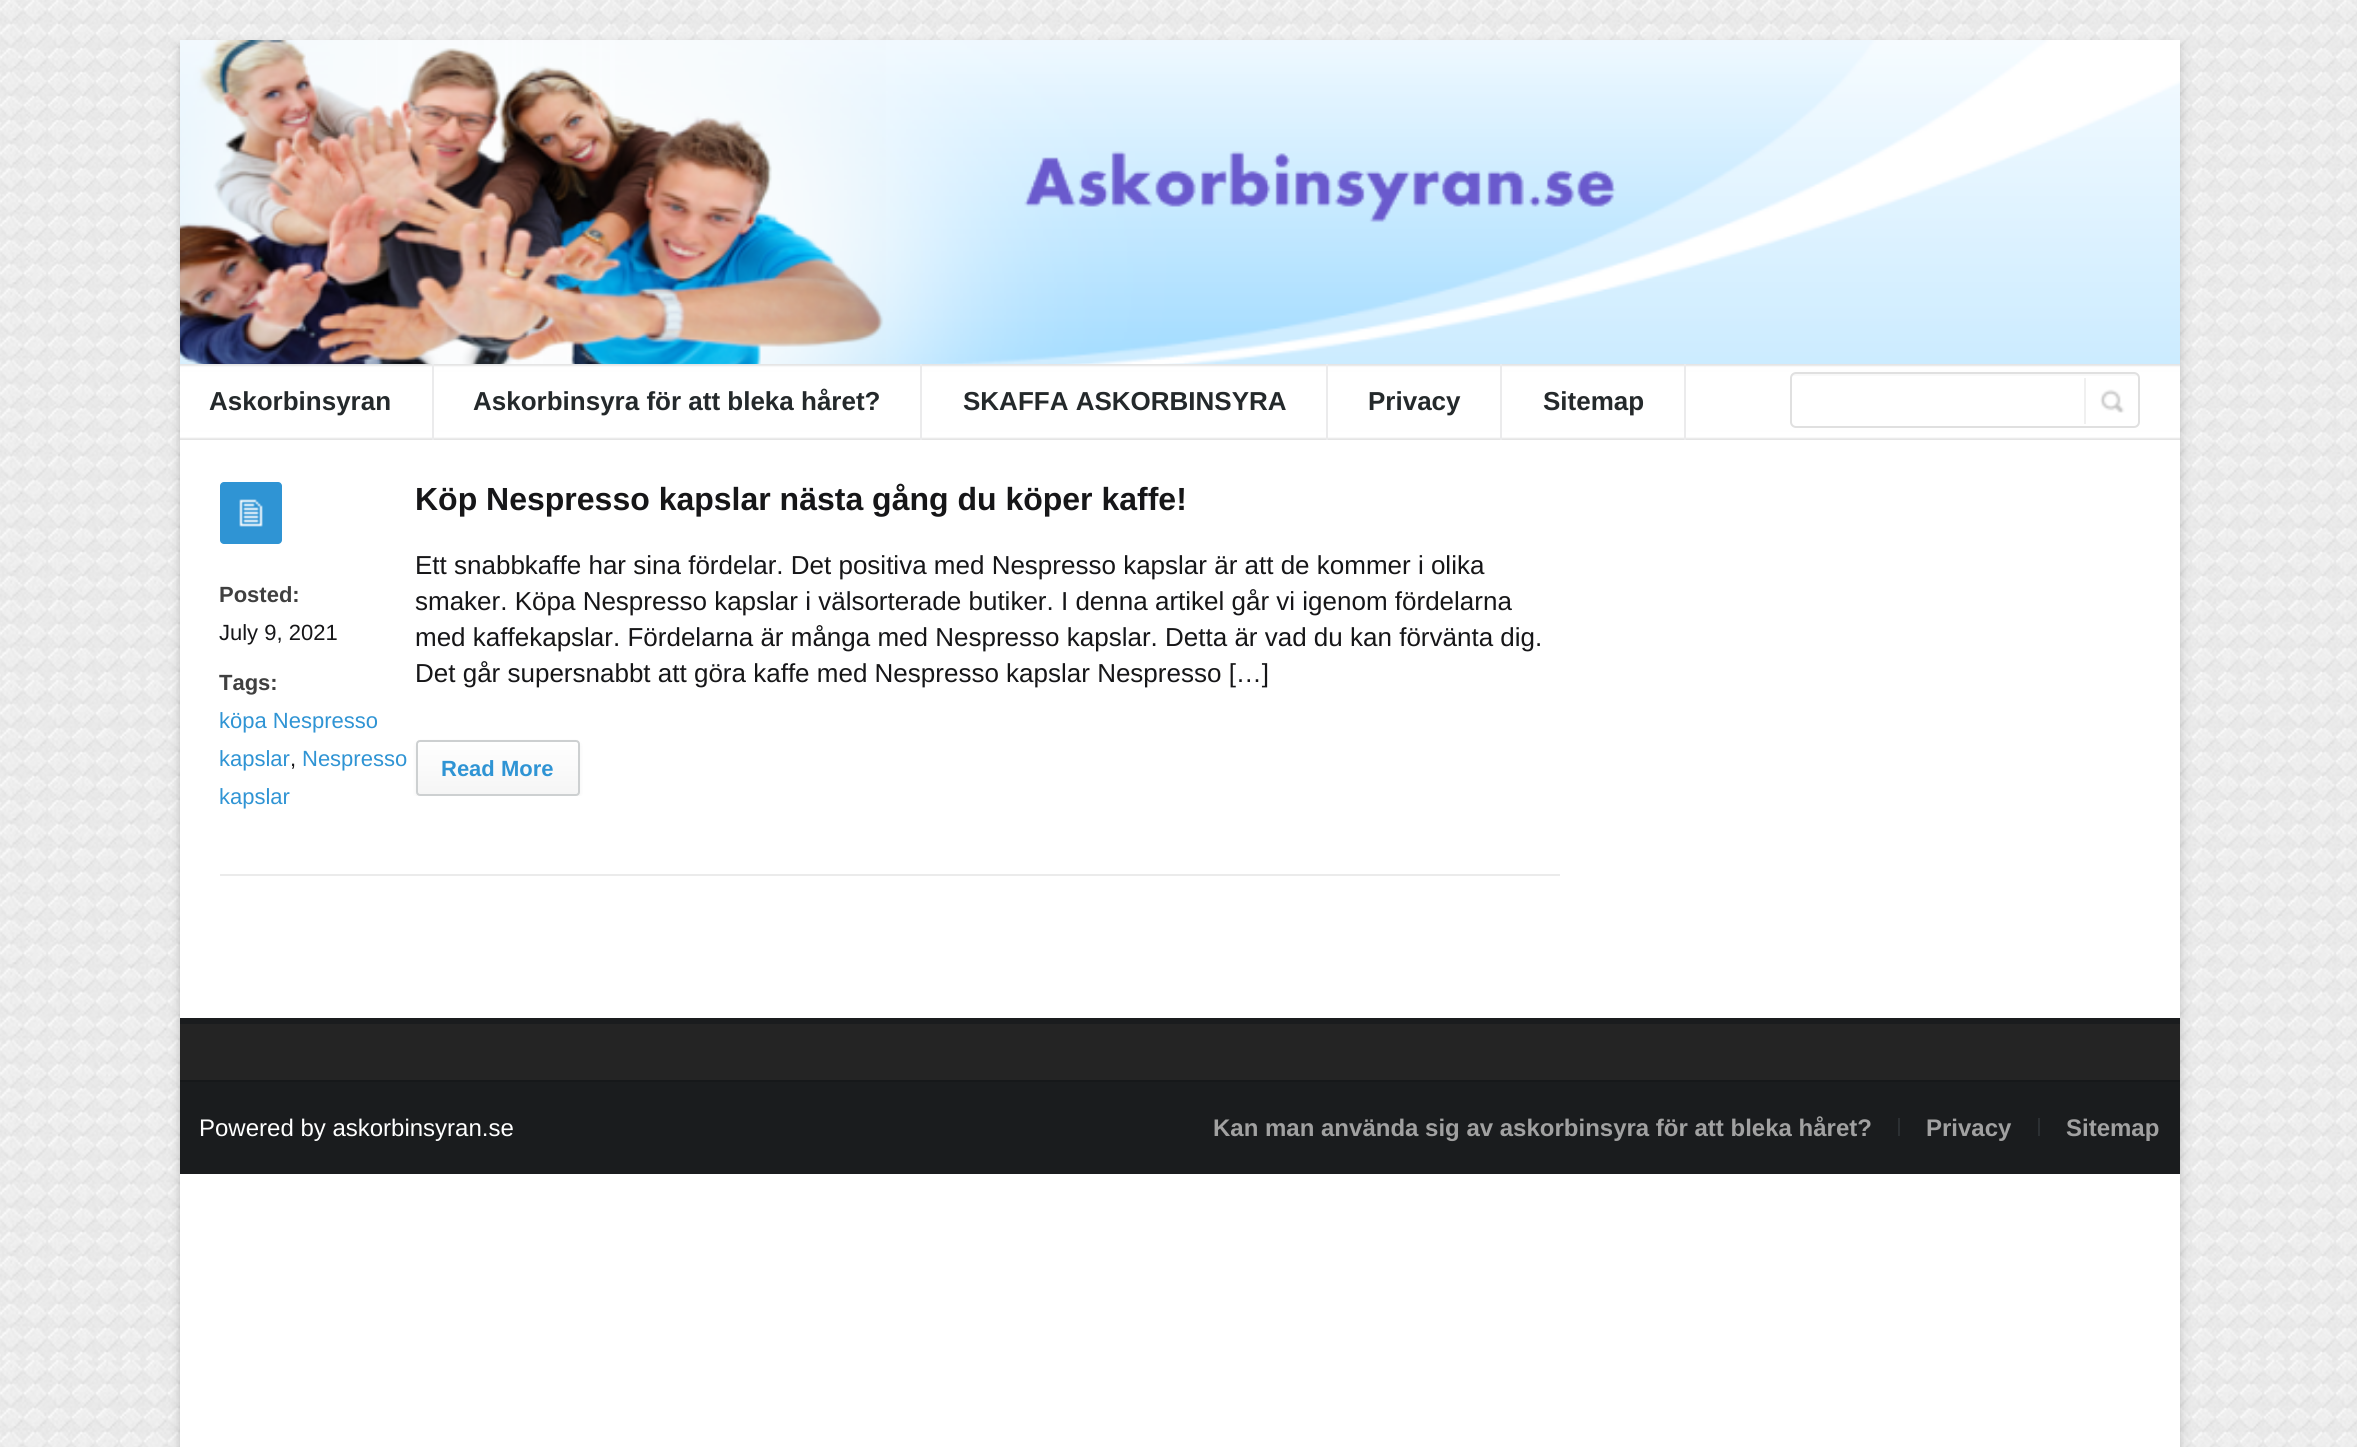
#include <cairo.h>
#include <math.h>
#include <stddef.h>


static void rgb(cairo_t *cr, int r, int g, int b)
{
	cairo_set_source_rgb(cr, r / 255.0, g / 255.0, b / 255.0);
}

static void face(cairo_t *cr, const char *family, double size, int italic, int bold)
{
	cairo_select_font_face(cr, family, italic ? CAIRO_FONT_SLANT_ITALIC : CAIRO_FONT_SLANT_NORMAL,
		bold ? CAIRO_FONT_WEIGHT_BOLD : CAIRO_FONT_WEIGHT_NORMAL);
	cairo_set_font_size(cr, size);
}

static void label(cairo_t *cr, double x, double y, const char *s)
{
	cairo_move_to(cr, x, y);
	cairo_show_text(cr, s);
}

static void rect(cairo_t *cr, double x, double y, double w, double h)
{
	cairo_rectangle(cr, x, y, w, h);
	cairo_fill(cr);
}

static void rrect(cairo_t *cr, double x, double y, double w, double h, double r)
{
	cairo_new_sub_path(cr);
	cairo_arc(cr, x + w - r, y + h - r, r, 0, M_PI / 2);
	cairo_arc(cr, x + r, y + h - r, r, M_PI / 2, M_PI);
	cairo_arc(cr, x + r, y + r, r, M_PI, 1.5 * M_PI);
	cairo_arc(cr, x + w - r, y + r, r, 1.5 * M_PI, 2 * M_PI);
	cairo_close_path(cr);
}

static void soft_shadow(cairo_t *cr, double x, double y, double w, double h, double r, double blur, double alpha)
{
	cairo_push_group_with_content(cr, CAIRO_CONTENT_ALPHA);
	cairo_set_operator(cr, CAIRO_OPERATOR_SOURCE);
	for (int i = 15; i >= -15 && fmin(w, h) + blur * i / 3 > 0; i -= 2) {
		double e = blur * i / 6;
		cairo_set_source_rgba(cr, 0, 0, 0, alpha * erfc((i - 1) / 8.5) / 2);
		rrect(cr, x - e, y - e, w + 2 * e, h + 2 * e, fmax(0, fmin(r + e + blur * .6, fmin(w, h) / 2 + e)));
		cairo_fill(cr);
	}
	cairo_pattern_t *soft = cairo_pop_group(cr);
	cairo_mask(cr, soft);
	cairo_pattern_destroy(soft);
}

static void image(cairo_t *cr, const char *path, double x, double y, double w, double h)
{
	cairo_surface_t *image = cairo_image_surface_create_from_png(path);
	cairo_save(cr);
	cairo_set_source_surface(cr, image, x, y);
	cairo_rectangle(cr, x, y, w, h);
	cairo_fill(cr);
	cairo_restore(cr);
	cairo_surface_destroy(image);
}

static void draw(cairo_t *cr) {
	cairo_pattern_t *gradient;
	rgb(cr, 255, 255, 255);
	cairo_paint(cr);
	image(cr, "image0.png", 0, 0, 2357, 1447);
	rgb(cr, 0, 0, 0);
	soft_shadow(cr, 180, 46, 2000, 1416, 0, 5, 0.22);
	rgb(cr, 255, 255, 255);
	rect(cr, 180, 440, 2000, 1007);
	image(cr, "image1.png", 180, 40, 2000, 324);
	image(cr, "image2.png", 180, 364, 2000, 76);
	rgb(cr, 235, 235, 236);
	rect(cr, 432, 364, 2, 76);
	face(cr, "Liberation Sans", 26, 0, 1);
	rgb(cr, 36, 41, 43);
	label(cr, 209, 410, "Askorbinsyran");
	rgb(cr, 235, 235, 236);
	rect(cr, 920, 364, 2, 76);
	rgb(cr, 36, 41, 43);
	label(cr, 473, 410, "Askorbinsyra för att bleka håret?");
	rgb(cr, 235, 235, 236);
	rect(cr, 1326, 364, 2, 76);
	rgb(cr, 36, 41, 43);
	label(cr, 963, 410, "SKAFFA ASKORBINSYRA");
	rgb(cr, 235, 235, 236);
	rect(cr, 1500, 364, 2, 76);
	rgb(cr, 36, 41, 43);
	label(cr, 1368, 410, "Privacy");
	rgb(cr, 235, 235, 236);
	rect(cr, 1684, 364, 2, 76);
	rgb(cr, 36, 41, 43);
	label(cr, 1543, 410, "Sitemap");
	image(cr, "image3.png", 1791, 374, 348, 2);
	rrect(cr, 1791, 373, 348, 54, 5);
	rgb(cr, 224, 224, 224);
	cairo_stroke(cr);
	rgb(cr, 240, 240, 240);
	rect(cr, 2084, 378, 2, 46);
	image(cr, "image4.png", 2100, 389, 25, 24);
	rgb(cr, 47, 148, 212);
	rrect(cr, 220, 482, 62, 62, 4);
	cairo_fill(cr);
	image(cr, "image5.png", 239, 499, 24, 28);
	face(cr, "Liberation Sans", 22, 0, 1);
	rgb(cr, 64, 64, 64);
	label(cr, 219, 602, "Posted:");
	face(cr, "Liberation Sans", 22, 0, 0);
	rgb(cr, 22, 22, 24);
	label(cr, 219, 640, "July 9, 2021");
	face(cr, "Liberation Sans", 22, 0, 1);
	rgb(cr, 64, 64, 64);
	label(cr, 219, 690, "Tags:");
	face(cr, "Liberation Sans", 22, 0, 0);
	rgb(cr, 47, 148, 212);
	label(cr, 219, 728, "köpa Nespresso");
	label(cr, 219, 766, "kapslar");
	rgb(cr, 22, 22, 24);
	label(cr, 290, 766, ",");
	rgb(cr, 47, 148, 212);
	label(cr, 302, 766, "Nespresso");
	label(cr, 219, 804, "kapslar");
	face(cr, "Liberation Sans", 32, 0, 1);
	rgb(cr, 22, 22, 24);
	label(cr, 415, 510, "Köp Nespresso kapslar nästa gång du köper kaffe!");
	face(cr, "Liberation Sans", 26, 0, 0);
	label(cr, 415, 574, "Ett snabbkaffe har sina fördelar. Det positiva med Nespresso kapslar är att de kommer i olika");
	label(cr, 415, 610, "smaker. Köpa Nespresso kapslar i välsorterade butiker. I denna artikel går vi igenom fördelarna");
	label(cr, 415, 646, "med kaffekapslar. Fördelarna är många med Nespresso kapslar. Detta är vad du kan förvänta dig.");
	label(cr, 415, 682, "Det går supersnabbt att göra kaffe med Nespresso kapslar Nespresso […]");
	cairo_save(cr);
	cairo_rectangle(cr, 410, 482, 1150, 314);
	cairo_clip(cr);
	rgb(cr, 0, 0, 0);
	soft_shadow(cr, 416, 742, 164, 56, 4, 2, 0.05);
	cairo_restore(cr);
	cairo_save(cr);
	rrect(cr, 416, 740, 164, 56, 4);
	cairo_clip(cr);
	gradient = cairo_pattern_create_linear(498, 742, 498, 794);
	cairo_pattern_add_color_stop_rgba(gradient, 0, 1, 1, 1, 1);
	cairo_pattern_add_color_stop_rgba(gradient, 1, 0.961, 0.961, 0.961, 1);
	cairo_set_source(cr, gradient);
	cairo_pattern_destroy(gradient);
	rect(cr, 416, 742, 164, 52);
	cairo_restore(cr);
	rrect(cr, 417, 741, 162, 54, 3);
	rgb(cr, 205, 208, 209);
	cairo_stroke(cr);
	face(cr, "Liberation Sans", 22, 0, 1);
	rgb(cr, 47, 148, 212);
	label(cr, 441, 776, "Read More");
	rgb(cr, 235, 235, 235);
	rect(cr, 220, 874, 1340, 2);
	rgb(cr, 26, 28, 30);
	rect(cr, 180, 1018, 2000, 6);
	rgb(cr, 36, 36, 36);
	rect(cr, 180, 1024, 2000, 56);
	rgb(cr, 26, 28, 30);
	rect(cr, 180, 1082, 2000, 92);
	rgb(cr, 22, 24, 26);
	rect(cr, 180, 1080, 2000, 2);
	face(cr, "Liberation Sans", 24, 0, 0);
	rgb(cr, 255, 255, 255);
	label(cr, 199, 1136, "Powered by askorbinsyran.se");
	face(cr, "Liberation Sans", 24, 0, 1);
	rgb(cr, 161, 161, 161);
	label(cr, 1213, 1136, "Kan man använda sig av askorbinsyra för att bleka håret?");
	rgb(cr, 44, 48, 51);
	rect(cr, 1898, 1118, 2, 18);
	rgb(cr, 161, 161, 161);
	label(cr, 1926, 1136, "Privacy");
	rgb(cr, 44, 48, 51);
	rect(cr, 2038, 1118, 2, 18);
	rgb(cr, 161, 161, 161);
	label(cr, 2066, 1136, "Sitemap");
}

int main(void) {
	cairo_surface_t *surface = cairo_image_surface_create(CAIRO_FORMAT_RGB24, 2357, 1447);
	cairo_t *cr = cairo_create(surface);
	cairo_font_options_t *options = cairo_font_options_create();
	cairo_font_options_set_hint_metrics(options, CAIRO_HINT_METRICS_OFF);
	cairo_font_options_set_hint_style(options, CAIRO_HINT_STYLE_NONE);
	cairo_set_font_options(cr, options);
	cairo_set_miter_limit(cr, 4);
	draw(cr);
	cairo_surface_write_to_png(surface, "render.png");
	cairo_font_options_destroy(options);
	cairo_destroy(cr);
	cairo_surface_destroy(surface);
	return 0;
}
